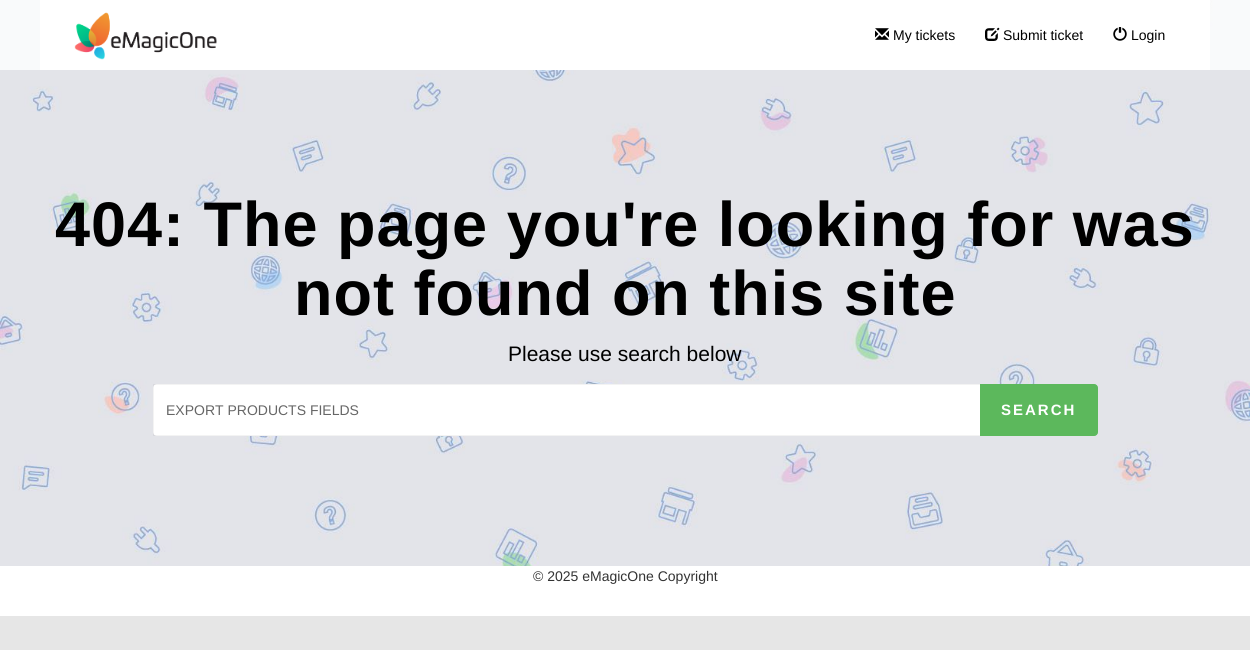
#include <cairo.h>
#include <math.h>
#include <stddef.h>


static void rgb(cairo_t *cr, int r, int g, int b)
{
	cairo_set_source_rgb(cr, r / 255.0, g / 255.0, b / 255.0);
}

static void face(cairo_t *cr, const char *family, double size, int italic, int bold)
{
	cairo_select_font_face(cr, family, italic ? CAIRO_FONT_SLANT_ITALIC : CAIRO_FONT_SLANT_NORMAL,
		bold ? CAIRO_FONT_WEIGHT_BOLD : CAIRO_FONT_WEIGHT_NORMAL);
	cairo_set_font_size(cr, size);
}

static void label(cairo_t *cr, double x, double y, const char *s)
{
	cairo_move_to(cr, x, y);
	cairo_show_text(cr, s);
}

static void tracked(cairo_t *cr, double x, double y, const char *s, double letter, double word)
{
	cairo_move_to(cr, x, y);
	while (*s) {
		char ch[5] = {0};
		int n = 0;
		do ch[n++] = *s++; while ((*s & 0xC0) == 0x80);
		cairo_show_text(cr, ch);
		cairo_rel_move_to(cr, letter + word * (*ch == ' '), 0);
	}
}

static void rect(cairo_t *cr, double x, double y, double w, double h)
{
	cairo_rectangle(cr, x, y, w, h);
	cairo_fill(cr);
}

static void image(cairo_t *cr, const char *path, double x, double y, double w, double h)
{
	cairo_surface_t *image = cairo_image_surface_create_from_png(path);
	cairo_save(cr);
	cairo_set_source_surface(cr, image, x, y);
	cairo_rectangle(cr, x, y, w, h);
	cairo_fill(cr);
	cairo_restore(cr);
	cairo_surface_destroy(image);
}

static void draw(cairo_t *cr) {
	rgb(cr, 230, 230, 230);
	cairo_paint(cr);
	rgb(cr, 255, 255, 255);
	rect(cr, 0, 566, 1250, 50);
	image(cr, "image4.png", 0, 0, 1250, 566);
	cairo_set_source_rgba(cr, 1, 1, 1, 0.8);
	rect(cr, 0, 0, 1250, 70);
	rgb(cr, 255, 255, 255);
	rect(cr, 40, 0, 1170, 70);
	image(cr, "image0.png", 74, 12, 143, 48);
	image(cr, "image1.png", 875, 28, 14, 12);
	face(cr, "Liberation Sans", 14, 0, 0);
	rgb(cr, 0, 0, 0);
	label(cr, 893, 40, "My tickets");
	image(cr, "image2.png", 985, 27, 15, 14);
	label(cr, 1003, 40, "Submit ticket");
	image(cr, "image3.png", 1113, 27, 14, 14);
	label(cr, 1131, 40, "Login");
	face(cr, "Liberation Sans", 63, 0, 1);
	tracked(cr, 55, 246, "404: The page you're looking for was", 1, 0);
	tracked(cr, 294, 315, "not found on this site", 1, 0);
	face(cr, "Liberation Sans", 21, 0, 0);
	label(cr, 508, 361, "Please use search below");
	rgb(cr, 255, 255, 255);
	cairo_new_path(cr);
	cairo_move_to(cr, 157, 384);
	cairo_line_to(cr, 981, 384);
	cairo_line_to(cr, 981, 436);
	cairo_line_to(cr, 157, 436);
	cairo_curve_to(cr, 155, 436, 153, 434, 153, 432);
	cairo_line_to(cr, 153, 388);
	cairo_curve_to(cr, 153, 386, 155, 384, 157, 384);
	cairo_close_path(cr);
	cairo_fill(cr);
	cairo_rectangle(cr, 153.5, 384.5, 827, 51);
	cairo_set_source_rgba(cr, 0, 0, 0, 0.05);
	cairo_set_line_width(cr, 1);
	cairo_stroke(cr);
	face(cr, "Liberation Sans", 14, 0, 0);
	rgb(cr, 102, 102, 102);
	label(cr, 166, 415, "EXPORT PRODUCTS FIELDS");
	rgb(cr, 92, 184, 92);
	cairo_new_path(cr);
	cairo_move_to(cr, 980.5, 384.5);
	cairo_line_to(cr, 1094, 384.5);
	cairo_curve_to(cr, 1096, 384.5, 1097.5, 386, 1097.5, 388);
	cairo_line_to(cr, 1097.5, 432);
	cairo_curve_to(cr, 1097.5, 434, 1096, 435.5, 1094, 435.5);
	cairo_line_to(cr, 980.5, 435.5);
	cairo_close_path(cr);
	cairo_fill_preserve(cr);
	cairo_stroke(cr);
	face(cr, "Liberation Sans", 15, 0, 1);
	rgb(cr, 255, 255, 255);
	tracked(cr, 1001, 415, "SEARCH", 2, 0);
	face(cr, "Liberation Sans", 14, 0, 0);
	rgb(cr, 51, 51, 51);
	label(cr, 533, 581, "© 2025 eMagicOne Copyright");
}

int main(void) {
	cairo_surface_t *surface = cairo_image_surface_create(CAIRO_FORMAT_RGB24, 1250, 650);
	cairo_t *cr = cairo_create(surface);
	cairo_font_options_t *options = cairo_font_options_create();
	cairo_font_options_set_hint_metrics(options, CAIRO_HINT_METRICS_OFF);
	cairo_font_options_set_hint_style(options, CAIRO_HINT_STYLE_NONE);
	cairo_set_font_options(cr, options);
	cairo_set_miter_limit(cr, 4);
	draw(cr);
	cairo_surface_write_to_png(surface, "render.png");
	cairo_font_options_destroy(options);
	cairo_destroy(cr);
	cairo_surface_destroy(surface);
	return 0;
}
